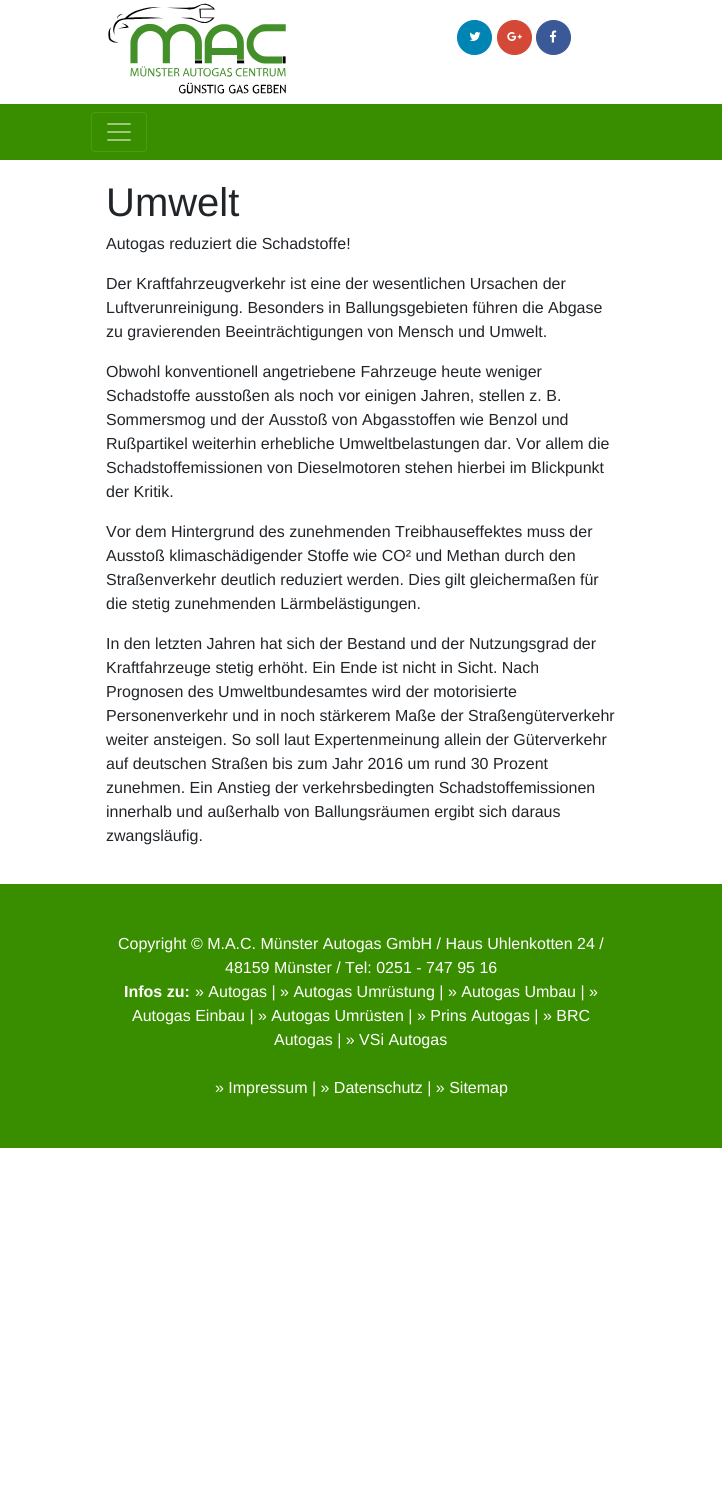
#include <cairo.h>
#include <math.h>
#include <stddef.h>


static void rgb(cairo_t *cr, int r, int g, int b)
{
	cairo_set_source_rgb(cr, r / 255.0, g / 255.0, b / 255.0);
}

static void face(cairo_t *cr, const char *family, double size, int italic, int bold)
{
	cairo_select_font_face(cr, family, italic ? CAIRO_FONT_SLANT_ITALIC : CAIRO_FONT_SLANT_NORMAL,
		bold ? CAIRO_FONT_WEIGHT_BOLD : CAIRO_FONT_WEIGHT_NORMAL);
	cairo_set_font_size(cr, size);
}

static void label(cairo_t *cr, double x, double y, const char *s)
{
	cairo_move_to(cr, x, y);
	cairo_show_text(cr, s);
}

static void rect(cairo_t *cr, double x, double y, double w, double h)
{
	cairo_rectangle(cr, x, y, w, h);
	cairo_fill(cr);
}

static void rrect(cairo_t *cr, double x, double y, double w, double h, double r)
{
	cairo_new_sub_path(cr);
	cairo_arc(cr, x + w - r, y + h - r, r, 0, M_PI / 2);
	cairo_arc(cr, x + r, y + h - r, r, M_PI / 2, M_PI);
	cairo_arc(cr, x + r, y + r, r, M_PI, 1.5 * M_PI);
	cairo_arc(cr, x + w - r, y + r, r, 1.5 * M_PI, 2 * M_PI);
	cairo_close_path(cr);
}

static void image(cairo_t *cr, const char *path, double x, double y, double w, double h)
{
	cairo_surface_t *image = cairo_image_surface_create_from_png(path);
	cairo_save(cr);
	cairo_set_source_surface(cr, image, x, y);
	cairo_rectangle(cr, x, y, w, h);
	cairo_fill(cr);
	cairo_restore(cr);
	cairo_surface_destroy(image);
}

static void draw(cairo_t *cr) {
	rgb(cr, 255, 255, 255);
	cairo_paint(cr);
	image(cr, "image0.png", 108, 3, 178, 91);
	rgb(cr, 0, 132, 180);
	cairo_arc(cr, 474.5, 37.5, 17, 0, 2 * M_PI);
	cairo_fill_preserve(cr);
	cairo_set_line_width(cr, 1);
	cairo_stroke(cr);
	image(cr, "image1.png", 469, 32, 12, 9);
	rgb(cr, 211, 72, 54);
	cairo_arc(cr, 514.5, 37.5, 17, 0, 2 * M_PI);
	cairo_fill_preserve(cr);
	cairo_stroke(cr);
	image(cr, "image2.png", 507, 32, 15, 9);
	rgb(cr, 59, 89, 152);
	cairo_arc(cr, 553.5, 37.5, 17, 0, 2 * M_PI);
	cairo_fill_preserve(cr);
	cairo_stroke(cr);
	image(cr, "image3.png", 550, 30, 7, 13);
	rgb(cr, 57, 142, 0);
	rect(cr, 0, 104, 722, 56);
	rrect(cr, 91.5, 112.5, 55, 39, 3.5);
	rgb(cr, 77, 153, 26);
	cairo_stroke(cr);
	image(cr, "image4.png", 107, 123, 24, 18);
	face(cr, "Liberation Sans", 40, 0, 0);
	rgb(cr, 33, 37, 41);
	label(cr, 106, 216, "Umwelt");
	face(cr, "Liberation Sans", 16, 0, 0);
	label(cr, 106, 249, "Autogas reduziert die Schadstoffe!");
	label(cr, 106, 289, "Der Kraftfahrzeugverkehr ist eine der wesentlichen Ursachen der");
	label(cr, 106, 313, "Luftverunreinigung. Besonders in Ballungsgebieten führen die Abgase");
	label(cr, 106, 337, "zu gravierenden Beeinträchtigungen von Mensch und Umwelt.");
	label(cr, 106, 377, "Obwohl konventionell angetriebene Fahrzeuge heute weniger");
	label(cr, 106, 401, "Schadstoffe ausstoßen als noch vor einigen Jahren, stellen z. B.");
	label(cr, 106, 425, "Sommersmog und der Ausstoß von Abgasstoffen wie Benzol und");
	label(cr, 106, 449, "Rußpartikel weiterhin erhebliche Umweltbelastungen dar. Vor allem die");
	label(cr, 106, 473, "Schadstoffemissionen von Dieselmotoren stehen hierbei im Blickpunkt");
	label(cr, 106, 497, "der Kritik.");
	label(cr, 106, 537, "Vor dem Hintergrund des zunehmenden Treibhauseffektes muss der");
	label(cr, 106, 561, "Ausstoß klimaschädigender Stoffe wie CO² und Methan durch den");
	label(cr, 106, 585, "Straßenverkehr deutlich reduziert werden. Dies gilt gleichermaßen für");
	label(cr, 106, 609, "die stetig zunehmenden Lärmbelästigungen.");
	label(cr, 106, 649, "In den letzten Jahren hat sich der Bestand und der Nutzungsgrad der");
	label(cr, 106, 673, "Kraftfahrzeuge stetig erhöht. Ein Ende ist nicht in Sicht. Nach");
	label(cr, 106, 697, "Prognosen des Umweltbundesamtes wird der motorisierte");
	label(cr, 106, 721, "Personenverkehr und in noch stärkerem Maße der Straßengüterverkehr");
	label(cr, 106, 745, "weiter ansteigen. So soll laut Expertenmeinung allein der Güterverkehr");
	label(cr, 106, 769, "auf deutschen Straßen bis zum Jahr 2016 um rund 30 Prozent");
	label(cr, 106, 793, "zunehmen. Ein Anstieg der verkehrsbedingten Schadstoffemissionen");
	label(cr, 106, 817, "innerhalb und außerhalb von Ballungsräumen ergibt sich daraus");
	label(cr, 106, 841, "zwangsläufig.");
	rgb(cr, 57, 142, 0);
	rect(cr, 0, 884, 722, 264);
	rgb(cr, 255, 255, 255);
	label(cr, 118, 949, "Copyright © M.A.C. Münster Autogas GmbH / Haus Uhlenkotten 24 /");
	label(cr, 225, 973, "48159 Münster / Tel: 0251 - 747 95 16");
	face(cr, "Liberation Sans", 16, 0, 1);
	label(cr, 124, 997, "Infos zu:");
	face(cr, "Liberation Sans", 16, 0, 0);
	label(cr, 195, 997, "» Autogas | » Autogas Umrüstung | » Autogas Umbau | »");
	label(cr, 132, 1021, "Autogas Einbau | » Autogas Umrüsten | » Prins Autogas | » BRC");
	label(cr, 274, 1045, "Autogas | » VSi Autogas");
	label(cr, 215, 1093, "» Impressum | » Datenschutz | » Sitemap");
}

int main(void) {
	cairo_surface_t *surface = cairo_image_surface_create(CAIRO_FORMAT_RGB24, 722, 1508);
	cairo_t *cr = cairo_create(surface);
	cairo_font_options_t *options = cairo_font_options_create();
	cairo_font_options_set_hint_metrics(options, CAIRO_HINT_METRICS_OFF);
	cairo_font_options_set_hint_style(options, CAIRO_HINT_STYLE_NONE);
	cairo_set_font_options(cr, options);
	cairo_set_miter_limit(cr, 4);
	draw(cr);
	cairo_surface_write_to_png(surface, "render.png");
	cairo_font_options_destroy(options);
	cairo_destroy(cr);
	cairo_surface_destroy(surface);
	return 0;
}
